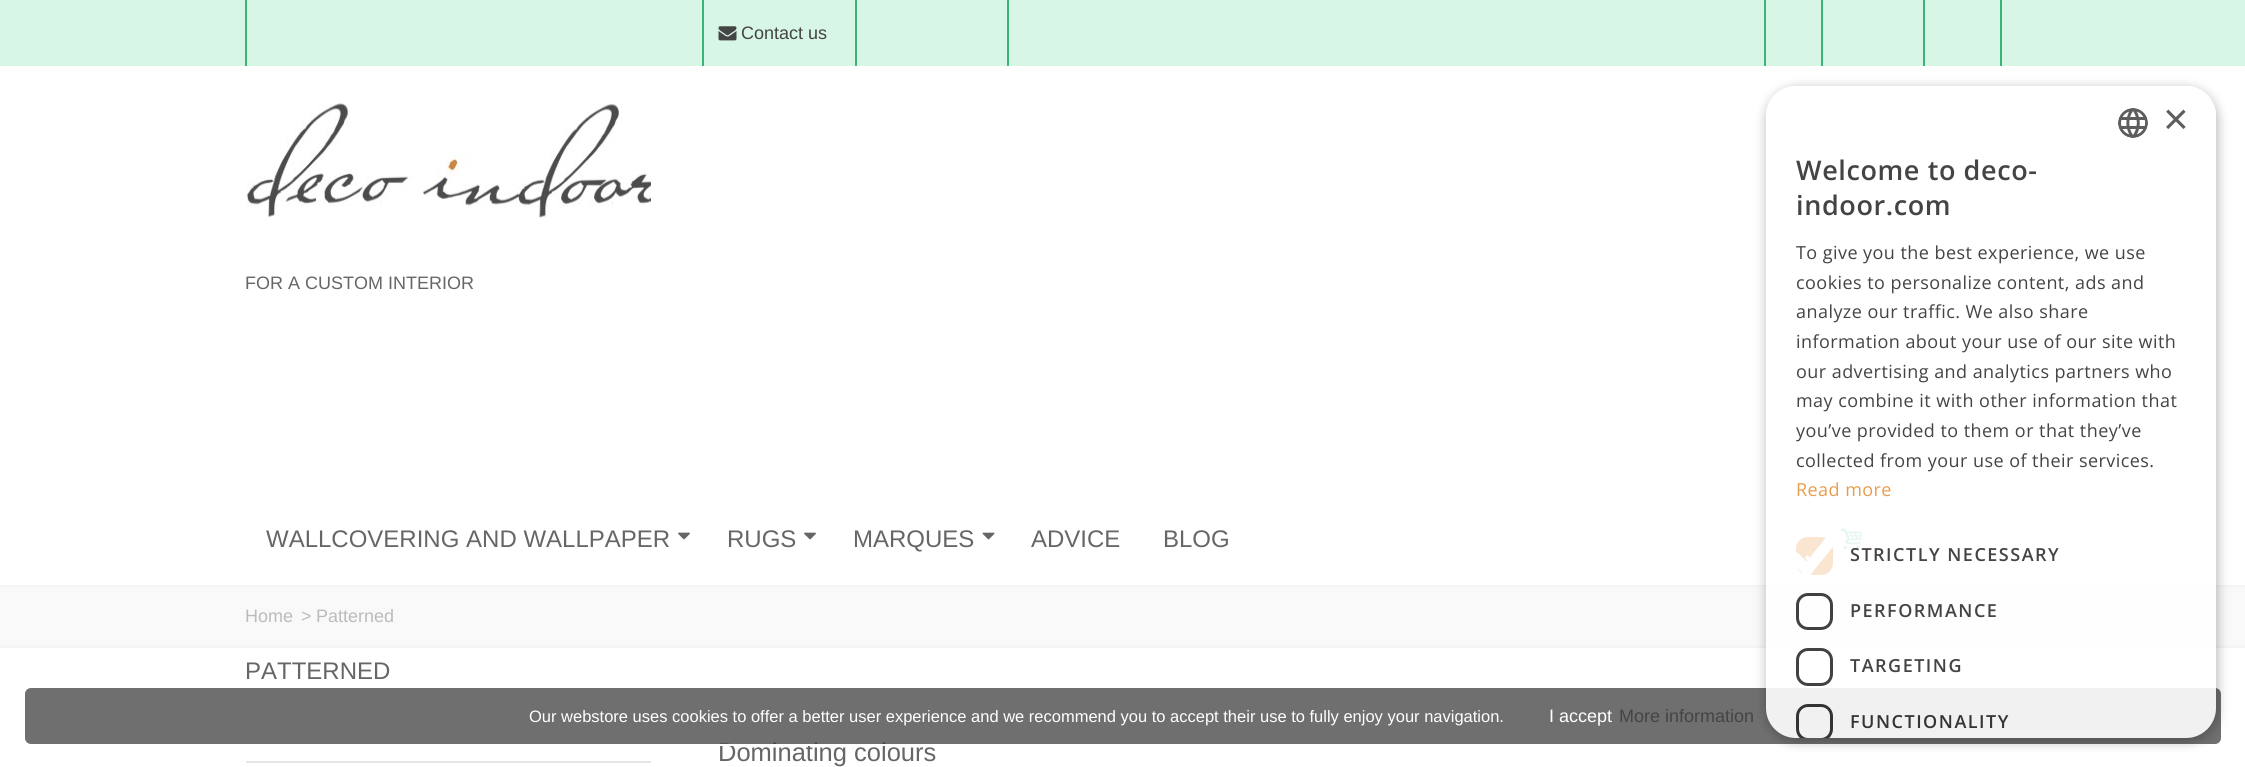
#include <cairo.h>
#include <math.h>
#include <stddef.h>


static void rgb(cairo_t *cr, int r, int g, int b)
{
	cairo_set_source_rgb(cr, r / 255.0, g / 255.0, b / 255.0);
}

static void face(cairo_t *cr, const char *family, double size, int italic, int bold)
{
	cairo_select_font_face(cr, family, italic ? CAIRO_FONT_SLANT_ITALIC : CAIRO_FONT_SLANT_NORMAL,
		bold ? CAIRO_FONT_WEIGHT_BOLD : CAIRO_FONT_WEIGHT_NORMAL);
	cairo_set_font_size(cr, size);
}

static void label(cairo_t *cr, double x, double y, const char *s)
{
	cairo_move_to(cr, x, y);
	cairo_show_text(cr, s);
}

static void tracked(cairo_t *cr, double x, double y, const char *s, double letter, double word)
{
	cairo_move_to(cr, x, y);
	while (*s) {
		char ch[5] = {0};
		int n = 0;
		do ch[n++] = *s++; while ((*s & 0xC0) == 0x80);
		cairo_show_text(cr, ch);
		cairo_rel_move_to(cr, letter + word * (*ch == ' '), 0);
	}
}

static void rect(cairo_t *cr, double x, double y, double w, double h)
{
	cairo_rectangle(cr, x, y, w, h);
	cairo_fill(cr);
}

static void rrect(cairo_t *cr, double x, double y, double w, double h, double r)
{
	cairo_new_sub_path(cr);
	cairo_arc(cr, x + w - r, y + h - r, r, 0, M_PI / 2);
	cairo_arc(cr, x + r, y + h - r, r, M_PI / 2, M_PI);
	cairo_arc(cr, x + r, y + r, r, M_PI, 1.5 * M_PI);
	cairo_arc(cr, x + w - r, y + r, r, 1.5 * M_PI, 2 * M_PI);
	cairo_close_path(cr);
}

static void soft_shadow(cairo_t *cr, double x, double y, double w, double h, double r, double blur, double alpha)
{
	cairo_push_group_with_content(cr, CAIRO_CONTENT_ALPHA);
	cairo_set_operator(cr, CAIRO_OPERATOR_SOURCE);
	for (int i = 15; i >= -15 && fmin(w, h) + blur * i / 3 > 0; i -= 2) {
		double e = blur * i / 6;
		cairo_set_source_rgba(cr, 0, 0, 0, alpha * erfc((i - 1) / 8.5) / 2);
		rrect(cr, x - e, y - e, w + 2 * e, h + 2 * e, fmax(0, fmin(r + e + blur * .6, fmin(w, h) / 2 + e)));
		cairo_fill(cr);
	}
	cairo_pattern_t *soft = cairo_pop_group(cr);
	cairo_mask(cr, soft);
	cairo_pattern_destroy(soft);
}

static void image(cairo_t *cr, const char *path, double x, double y, double w, double h)
{
	cairo_surface_t *image = cairo_image_surface_create_from_png(path);
	cairo_save(cr);
	cairo_set_source_surface(cr, image, x, y);
	cairo_rectangle(cr, x, y, w, h);
	cairo_fill(cr);
	cairo_restore(cr);
	cairo_surface_destroy(image);
}

static void draw(cairo_t *cr) {
	cairo_pattern_t *gradient;
	rgb(cr, 255, 255, 255);
	cairo_paint(cr);
	rgb(cr, 216, 246, 230);
	rect(cr, 0, 0, 2245, 66);
	rgb(cr, 58, 180, 123);
	rect(cr, 702, 0, 2, 66);
	rect(cr, 245, 0, 2, 66);
	rect(cr, 855, 0, 2, 66);
	image(cr, "image0.png", 718, 26, 19, 15);
	face(cr, "Liberation Sans", 18, 0, 0);
	rgb(cr, 68, 68, 68);
	label(cr, 741, 39, "Contact us");
	rgb(cr, 58, 180, 123);
	rect(cr, 1007, 0, 2, 66);
	rect(cr, 1764, 0, 2, 66);
	rect(cr, 1821, 0, 2, 66);
	rect(cr, 2000, 0, 2, 66);
	rect(cr, 1923, 0, 2, 66);
	image(cr, "image1.png", 246, 103, 405, 115);
	rgb(cr, 102, 102, 102);
	label(cr, 245, 289, "FOR A CUSTOM INTERIOR");
	face(cr, "Liberation Sans", 25.5, 0, 0);
	label(cr, 718, 761, "Dominating colours");
	cairo_set_source_rgba(cr, 0.2, 0.196, 0.196, 0.7);
	rrect(cr, 24, 687, 2198, 58, 7);
	cairo_fill_preserve(cr);
	rgb(cr, 255, 255, 255);
	cairo_stroke(cr);
	face(cr, "Liberation Sans", 16.5, 0, 0);
	label(cr, 529, 722, "Our webstore uses cookies to offer a better user experience and we recommend you to accept their use to fully enjoy your navigation.");
	face(cr, "Liberation Sans", 18, 0, 0);
	label(cr, 1549, 722, "I accept");
	rgb(cr, 68, 68, 68);
	label(cr, 1619, 722, "More information");
	face(cr, "Liberation Sans", 24, 0, 0);
	rgb(cr, 102, 102, 102);
	label(cr, 266, 547, "WALLCOVERING AND WALLPAPER");
	image(cr, "image2.png", 678, 532, 12, 8);
	label(cr, 727, 547, "RUGS");
	image(cr, "image2.png", 804, 532, 12, 8);
	label(cr, 853, 547, "MARQUES");
	image(cr, "image3.png", 982, 532, 13, 8);
	label(cr, 1031, 547, "ADVICE");
	label(cr, 1163, 547, "BLOG");
	image(cr, "image4.png", 1841, 528, 21, 22);
	gradient = cairo_pattern_create_linear(1123, 585, 1123, 648);
	cairo_pattern_add_color_stop_rgba(gradient, 0, 0.949, 0.949, 0.949, 1);
	cairo_pattern_add_color_stop_rgba(gradient, 0.05, 0.976, 0.976, 0.976, 1);
	cairo_pattern_add_color_stop_rgba(gradient, 0.95, 0.976, 0.976, 0.976, 1);
	cairo_pattern_add_color_stop_rgba(gradient, 1, 0.949, 0.949, 0.949, 1);
	cairo_set_source(cr, gradient);
	cairo_pattern_destroy(gradient);
	rect(cr, 0, 585, 2245, 63);
	face(cr, "Liberation Sans", 18, 0, 0);
	rgb(cr, 187, 187, 187);
	label(cr, 245, 622, "Home");
	label(cr, 301, 622, ">");
	label(cr, 316, 622, "Patterned");
	face(cr, "Liberation Sans", 24, 0, 0);
	rgb(cr, 102, 102, 102);
	label(cr, 245, 679, "PATTERNED");
	rgb(cr, 229, 229, 229);
	rect(cr, 246, 761, 405, 2);
	cairo_save(cr);
	cairo_set_fill_rule(cr, CAIRO_FILL_RULE_EVEN_ODD);
	cairo_new_path(cr);
	cairo_move_to(cr, 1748, 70);
	cairo_line_to(cr, 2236, 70);
	cairo_line_to(cr, 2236, 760);
	cairo_line_to(cr, 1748, 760);
	cairo_close_path(cr);
	cairo_move_to(cr, 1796, 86);
	cairo_line_to(cr, 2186, 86);
	cairo_curve_to(cr, 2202.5, 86, 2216, 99.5, 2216, 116);
	cairo_line_to(cr, 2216, 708);
	cairo_curve_to(cr, 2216, 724.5, 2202.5, 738, 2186, 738);
	cairo_line_to(cr, 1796, 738);
	cairo_curve_to(cr, 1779.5, 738, 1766, 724.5, 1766, 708);
	cairo_line_to(cr, 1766, 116);
	cairo_curve_to(cr, 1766, 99.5, 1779.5, 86, 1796, 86);
	cairo_close_path(cr);
	cairo_clip(cr);
	rgb(cr, 0, 0, 0);
	soft_shadow(cr, 1767, 89, 450, 652, 30, 6, 0.32);
	cairo_restore(cr);
	cairo_set_source_rgba(cr, 1, 1, 1, 0.9);
	rrect(cr, 1766, 86, 450, 652, 30);
	cairo_fill(cr);
	image(cr, "image5.png", 2118, 108, 30, 30);
	face(cr, "Liberation Sans", 44, 0, 0);
	rgb(cr, 94, 94, 94);
	label(cr, 2163, 134, "×");
	face(cr, "Open Sans SemiBold", 27, 0, 0);
	rgb(cr, 68, 68, 68);
	tracked(cr, 1796, 180, "Welcome to deco-", 0.6, 0);
	tracked(cr, 1796, 215, "indoor.com", 0.6, 0);
	face(cr, "Open Sans", 18, 0, 0);
	tracked(cr, 1796, 259, "To give you the best experience, we use", 0.45, 0);
	tracked(cr, 1796, 289, "cookies to personalize content, ads and", 0.45, 0);
	tracked(cr, 1796, 318, "analyze our traffic. We also share", 0.45, 0);
	tracked(cr, 1796, 348, "information about your use of our site with", 0.45, 0);
	tracked(cr, 1796, 378, "our advertising and analytics partners who", 0.45, 0);
	tracked(cr, 1796, 407, "may combine it with other information that", 0.45, 0);
	tracked(cr, 1796, 437, "you’ve provided to them or that they’ve", 0.45, 0);
	tracked(cr, 1796, 467, "collected from your use of their services.", 0.45, 0);
	rgb(cr, 233, 156, 76);
	tracked(cr, 1796, 496, "Read more", 0.45, 0);
	rgb(cr, 249, 229, 208);
	rrect(cr, 1796, 537, 37, 38, 12);
	cairo_fill(cr);
	cairo_new_path(cr);
	cairo_move_to(cr, 1806, 556.5);
	cairo_line_to(cr, 1811, 561.5);
	cairo_line_to(cr, 1822.5, 550);
	rgb(cr, 255, 255, 255);
	cairo_set_line_width(cr, 3.9);
	cairo_stroke(cr);
	cairo_new_path(cr);
	cairo_move_to(cr, 1793, 556);
	cairo_line_to(cr, 1807, 570);
	cairo_line_to(cr, 1835.5, 534.5);
	cairo_set_line_width(cr, 11.3);
	cairo_stroke(cr);
	face(cr, "Open Sans SemiBold", 18, 0, 0);
	rgb(cr, 68, 68, 68);
	tracked(cr, 1850, 561, "STRICTLY NECESSARY", 1.5, 0);
	rrect(cr, 1797.5, 594.5, 34, 34, 10.5);
	rgb(cr, 65, 65, 65);
	cairo_set_line_width(cr, 3);
	cairo_stroke(cr);
	rgb(cr, 68, 68, 68);
	tracked(cr, 1850, 617, "PERFORMANCE", 1.5, 0);
	rrect(cr, 1797.5, 649.5, 34, 35, 10.5);
	rgb(cr, 66, 66, 66);
	cairo_stroke(cr);
	rgb(cr, 68, 68, 68);
	tracked(cr, 1850, 672, "TARGETING", 1.5, 0);
	rgb(cr, 52, 52, 52);
	cairo_new_path(cr);
	cairo_move_to(cr, 1808, 704);
	cairo_curve_to(cr, 1801.5, 704, 1796, 709.5, 1796, 716);
	cairo_line_to(cr, 1796, 729);
	cairo_curve_to(cr, 1796, 732.5, 1797.5, 736, 1800, 738);
	cairo_line_to(cr, 1808, 738);
	cairo_curve_to(cr, 1803, 738, 1799, 734, 1799, 729);
	cairo_line_to(cr, 1799, 716);
	cairo_curve_to(cr, 1799, 711, 1803, 707, 1808, 707);
	cairo_line_to(cr, 1821, 707);
	cairo_curve_to(cr, 1826, 707, 1830, 711, 1830, 716);
	cairo_line_to(cr, 1830, 729);
	cairo_curve_to(cr, 1830, 734, 1826, 738, 1821, 738);
	cairo_line_to(cr, 1829, 738);
	cairo_curve_to(cr, 1831.5, 736, 1833, 732.5, 1833, 729);
	cairo_line_to(cr, 1833, 716);
	cairo_curve_to(cr, 1833, 709.5, 1827.5, 704, 1821, 704);
	cairo_close_path(cr);
	cairo_fill(cr);
	tracked(cr, 1850, 728, "FUNCTIONALITY", 1.5, 0);
}

int main(void) {
	cairo_surface_t *surface = cairo_image_surface_create(CAIRO_FORMAT_RGB24, 2245, 767);
	cairo_t *cr = cairo_create(surface);
	cairo_font_options_t *options = cairo_font_options_create();
	cairo_font_options_set_hint_metrics(options, CAIRO_HINT_METRICS_OFF);
	cairo_font_options_set_hint_style(options, CAIRO_HINT_STYLE_NONE);
	cairo_set_font_options(cr, options);
	cairo_set_miter_limit(cr, 4);
	draw(cr);
	cairo_surface_write_to_png(surface, "render.png");
	cairo_font_options_destroy(options);
	cairo_destroy(cr);
	cairo_surface_destroy(surface);
	return 0;
}
